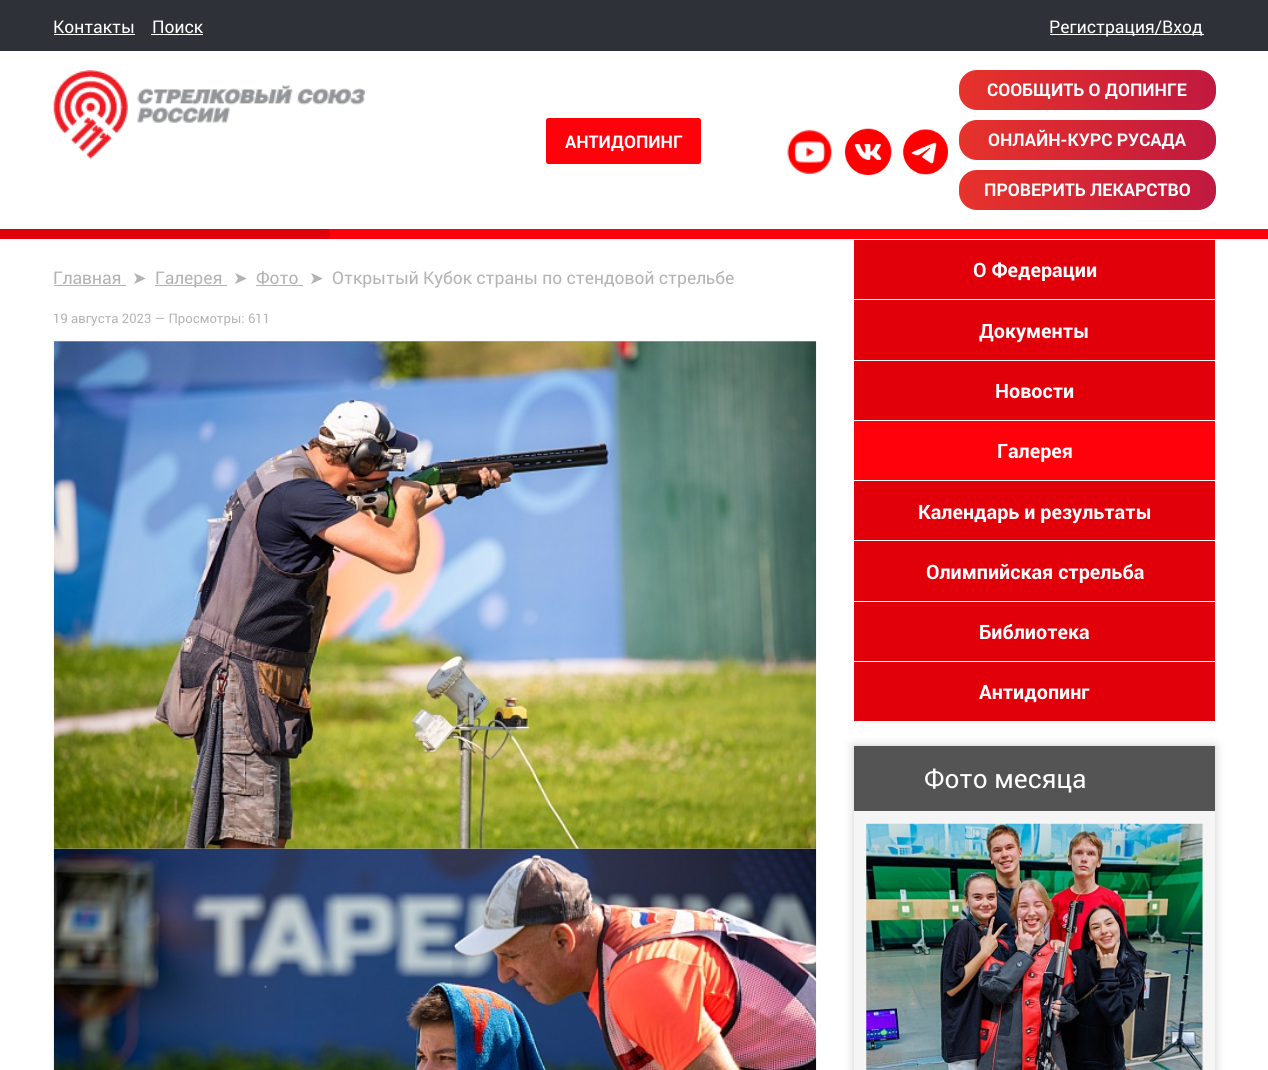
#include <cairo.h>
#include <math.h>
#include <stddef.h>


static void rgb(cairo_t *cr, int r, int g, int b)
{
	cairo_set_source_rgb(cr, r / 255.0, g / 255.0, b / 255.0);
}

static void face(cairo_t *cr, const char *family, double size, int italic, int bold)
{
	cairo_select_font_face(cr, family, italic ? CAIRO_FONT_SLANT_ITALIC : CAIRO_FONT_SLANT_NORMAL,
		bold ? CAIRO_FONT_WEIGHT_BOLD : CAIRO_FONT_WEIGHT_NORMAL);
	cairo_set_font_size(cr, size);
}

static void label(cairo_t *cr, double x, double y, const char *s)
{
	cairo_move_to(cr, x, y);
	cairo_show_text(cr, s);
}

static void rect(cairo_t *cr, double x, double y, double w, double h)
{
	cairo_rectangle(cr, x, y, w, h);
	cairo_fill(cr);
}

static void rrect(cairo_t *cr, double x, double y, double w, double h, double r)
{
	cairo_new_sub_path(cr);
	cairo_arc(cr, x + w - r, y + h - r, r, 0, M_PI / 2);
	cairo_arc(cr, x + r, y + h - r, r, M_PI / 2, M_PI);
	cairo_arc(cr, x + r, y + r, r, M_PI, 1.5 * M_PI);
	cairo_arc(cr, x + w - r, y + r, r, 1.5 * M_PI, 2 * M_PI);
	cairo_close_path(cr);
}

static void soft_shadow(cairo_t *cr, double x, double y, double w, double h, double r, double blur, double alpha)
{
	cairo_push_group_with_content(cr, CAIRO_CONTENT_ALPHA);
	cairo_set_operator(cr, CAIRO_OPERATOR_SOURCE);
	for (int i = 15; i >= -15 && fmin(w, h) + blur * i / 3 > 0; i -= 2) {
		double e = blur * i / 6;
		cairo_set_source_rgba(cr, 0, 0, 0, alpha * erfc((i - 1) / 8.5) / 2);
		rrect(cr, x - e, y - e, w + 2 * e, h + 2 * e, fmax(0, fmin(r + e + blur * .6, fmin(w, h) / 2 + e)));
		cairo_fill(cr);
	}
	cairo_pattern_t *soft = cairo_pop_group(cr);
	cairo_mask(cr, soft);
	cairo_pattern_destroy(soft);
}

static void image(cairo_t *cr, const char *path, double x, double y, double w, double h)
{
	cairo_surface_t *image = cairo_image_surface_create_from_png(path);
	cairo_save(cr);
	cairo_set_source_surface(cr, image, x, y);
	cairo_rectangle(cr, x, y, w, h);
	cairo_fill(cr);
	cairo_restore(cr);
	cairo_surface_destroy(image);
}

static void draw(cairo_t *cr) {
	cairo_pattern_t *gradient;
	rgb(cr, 255, 255, 255);
	cairo_paint(cr);
	rgb(cr, 46, 49, 56);
	rect(cr, 0, 0, 1268, 51);
	face(cr, "Roboto", 17.5, 0, 0);
	rgb(cr, 255, 255, 255);
	label(cr, 53, 33, "Контакты");
	rect(cr, 54, 34, 81, 1);
	label(cr, 152, 33, "Поиск");
	rect(cr, 151, 34, 52, 1);
	rect(cr, 1050, 34, 154, 1);
	label(cr, 1049, 33, "Регистрация/Вход");
	image(cr, "image0.png", 53, 70, 313, 89);
	rgb(cr, 255, 1, 11);
	rrect(cr, 546, 118, 155, 46, 2.5);
	cairo_fill(cr);
	face(cr, "Roboto", 17.5, 0, 1);
	rgb(cr, 255, 255, 255);
	label(cr, 565, 148, "АНТИДОПИНГ");
	image(cr, "image1.png", 787, 129, 45, 45);
	image(cr, "image2.png", 845, 128, 47, 47);
	image(cr, "image3.png", 903, 129, 45, 46);
	gradient = cairo_pattern_create_linear(1216, 90, 959, 90);
	cairo_pattern_add_color_stop_rgba(gradient, 0, 0.757, 0.098, 0.251, 1);
	cairo_pattern_add_color_stop_rgba(gradient, 1, 0.906, 0.2, 0.169, 1);
	cairo_set_source(cr, gradient);
	cairo_pattern_destroy(gradient);
	rrect(cr, 959, 70, 257, 40, 18);
	cairo_fill(cr);
	rgb(cr, 255, 255, 255);
	label(cr, 987, 96, "СООБЩИТЬ О ДОПИНГЕ");
	gradient = cairo_pattern_create_linear(1216, 140, 959, 140);
	cairo_pattern_add_color_stop_rgba(gradient, 0, 0.757, 0.098, 0.251, 1);
	cairo_pattern_add_color_stop_rgba(gradient, 1, 0.906, 0.2, 0.169, 1);
	cairo_set_source(cr, gradient);
	cairo_pattern_destroy(gradient);
	rrect(cr, 959, 120, 257, 40, 18);
	cairo_fill(cr);
	rgb(cr, 255, 255, 255);
	label(cr, 988, 146, "ОНЛАЙН-КУРС РУСАДА");
	gradient = cairo_pattern_create_linear(1216, 190, 959, 190);
	cairo_pattern_add_color_stop_rgba(gradient, 0, 0.757, 0.098, 0.251, 1);
	cairo_pattern_add_color_stop_rgba(gradient, 1, 0.906, 0.2, 0.169, 1);
	cairo_set_source(cr, gradient);
	cairo_pattern_destroy(gradient);
	rrect(cr, 959, 170, 257, 40, 18);
	cairo_fill(cr);
	rgb(cr, 255, 255, 255);
	label(cr, 984, 196, "ПРОВЕРИТЬ ЛЕКАРСТВО");
	rgb(cr, 255, 1, 11);
	rect(cr, 330, 229, 938, 10);
	rgb(cr, 225, 0, 9);
	rect(cr, 0, 229, 330, 10);
	face(cr, "Roboto", 17.5, 0, 0);
	rgb(cr, 179, 179, 179);
	label(cr, 53, 284, "Главная");
	rect(cr, 54, 285, 72, 1);
	face(cr, "DejaVu Sans", 17.5, 0, 0);
	label(cr, 132, 284, "➤");
	rect(cr, 155, 285, 72, 1);
	face(cr, "Roboto", 17.5, 0, 0);
	label(cr, 155, 284, "Галерея");
	face(cr, "DejaVu Sans", 17.5, 0, 0);
	label(cr, 233, 284, "➤");
	face(cr, "Roboto", 17.5, 0, 0);
	label(cr, 256, 284, "Фото");
	rect(cr, 256, 285, 47, 1);
	face(cr, "DejaVu Sans", 17.5, 0, 0);
	label(cr, 309, 284, "➤");
	face(cr, "Roboto", 17.5, 0, 0);
	label(cr, 332, 284, "Открытый Кубок страны по стендовой стрельбе");
	face(cr, "Roboto", 13.1, 0, 0);
	label(cr, 53, 323, "19 августа 2023 — Просмотры: 611");
	rgb(cr, 204, 204, 204);
	rect(cr, 54, 341, 762, 508);
	cairo_save(cr);
	cairo_rectangle(cr, 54, 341, 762, 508);
	cairo_clip(cr);
	rgb(cr, 0, 0, 0);
	soft_shadow(cr, 54, 341, 762, 508, 0, 4, 0.2);
	cairo_restore(cr);
	image(cr, "image4.png", 53, 341, 764, 508);
	image(cr, "image5.png", 53, 848, 764, 222);
	rgb(cr, 225, 0, 9);
	rect(cr, 854, 240, 361, 59);
	face(cr, "Roboto", 19.75, 0, 1);
	rgb(cr, 255, 255, 255);
	label(cr, 973, 277, "О Федерации");
	rgb(cr, 225, 0, 9);
	rect(cr, 854, 300, 361, 60);
	rgb(cr, 255, 255, 255);
	label(cr, 979, 338, "Документы");
	rgb(cr, 225, 0, 9);
	rect(cr, 854, 361, 361, 59);
	rgb(cr, 255, 255, 255);
	label(cr, 995, 398, "Новости");
	rgb(cr, 255, 1, 11);
	rect(cr, 854, 421, 361, 59);
	rgb(cr, 255, 255, 255);
	label(cr, 997, 458, "Галерея");
	rgb(cr, 225, 0, 9);
	rect(cr, 854, 481, 361, 59);
	rgb(cr, 255, 255, 255);
	label(cr, 918, 519, "Календарь и результаты");
	rgb(cr, 225, 0, 9);
	rect(cr, 854, 541, 361, 60);
	rgb(cr, 255, 255, 255);
	label(cr, 926, 579, "Олимпийская стрельба");
	rgb(cr, 225, 0, 9);
	rect(cr, 854, 602, 361, 59);
	rgb(cr, 255, 255, 255);
	label(cr, 979, 639, "Библиотека");
	rgb(cr, 225, 0, 9);
	rect(cr, 854, 662, 361, 59);
	rgb(cr, 255, 255, 255);
	label(cr, 979, 699, "Антидопинг");
	rgb(cr, 0, 0, 0);
	soft_shadow(cr, 854, 746, 361, 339, 0, 5, 0.2);
	rgb(cr, 245, 245, 245);
	rect(cr, 854, 811, 361, 259);
	rgb(cr, 84, 84, 84);
	rect(cr, 854, 746, 361, 65);
	face(cr, "Roboto", 26.25, 0, 0);
	rgb(cr, 255, 255, 255);
	label(cr, 924, 788, "Фото месяца");
	image(cr, "image6.png", 866, 823, 337, 247);
}

int main(void) {
	cairo_surface_t *surface = cairo_image_surface_create(CAIRO_FORMAT_RGB24, 1268, 1070);
	cairo_t *cr = cairo_create(surface);
	cairo_font_options_t *options = cairo_font_options_create();
	cairo_font_options_set_hint_metrics(options, CAIRO_HINT_METRICS_OFF);
	cairo_font_options_set_hint_style(options, CAIRO_HINT_STYLE_NONE);
	cairo_set_font_options(cr, options);
	cairo_set_miter_limit(cr, 4);
	draw(cr);
	cairo_surface_write_to_png(surface, "render.png");
	cairo_font_options_destroy(options);
	cairo_destroy(cr);
	cairo_surface_destroy(surface);
	return 0;
}
